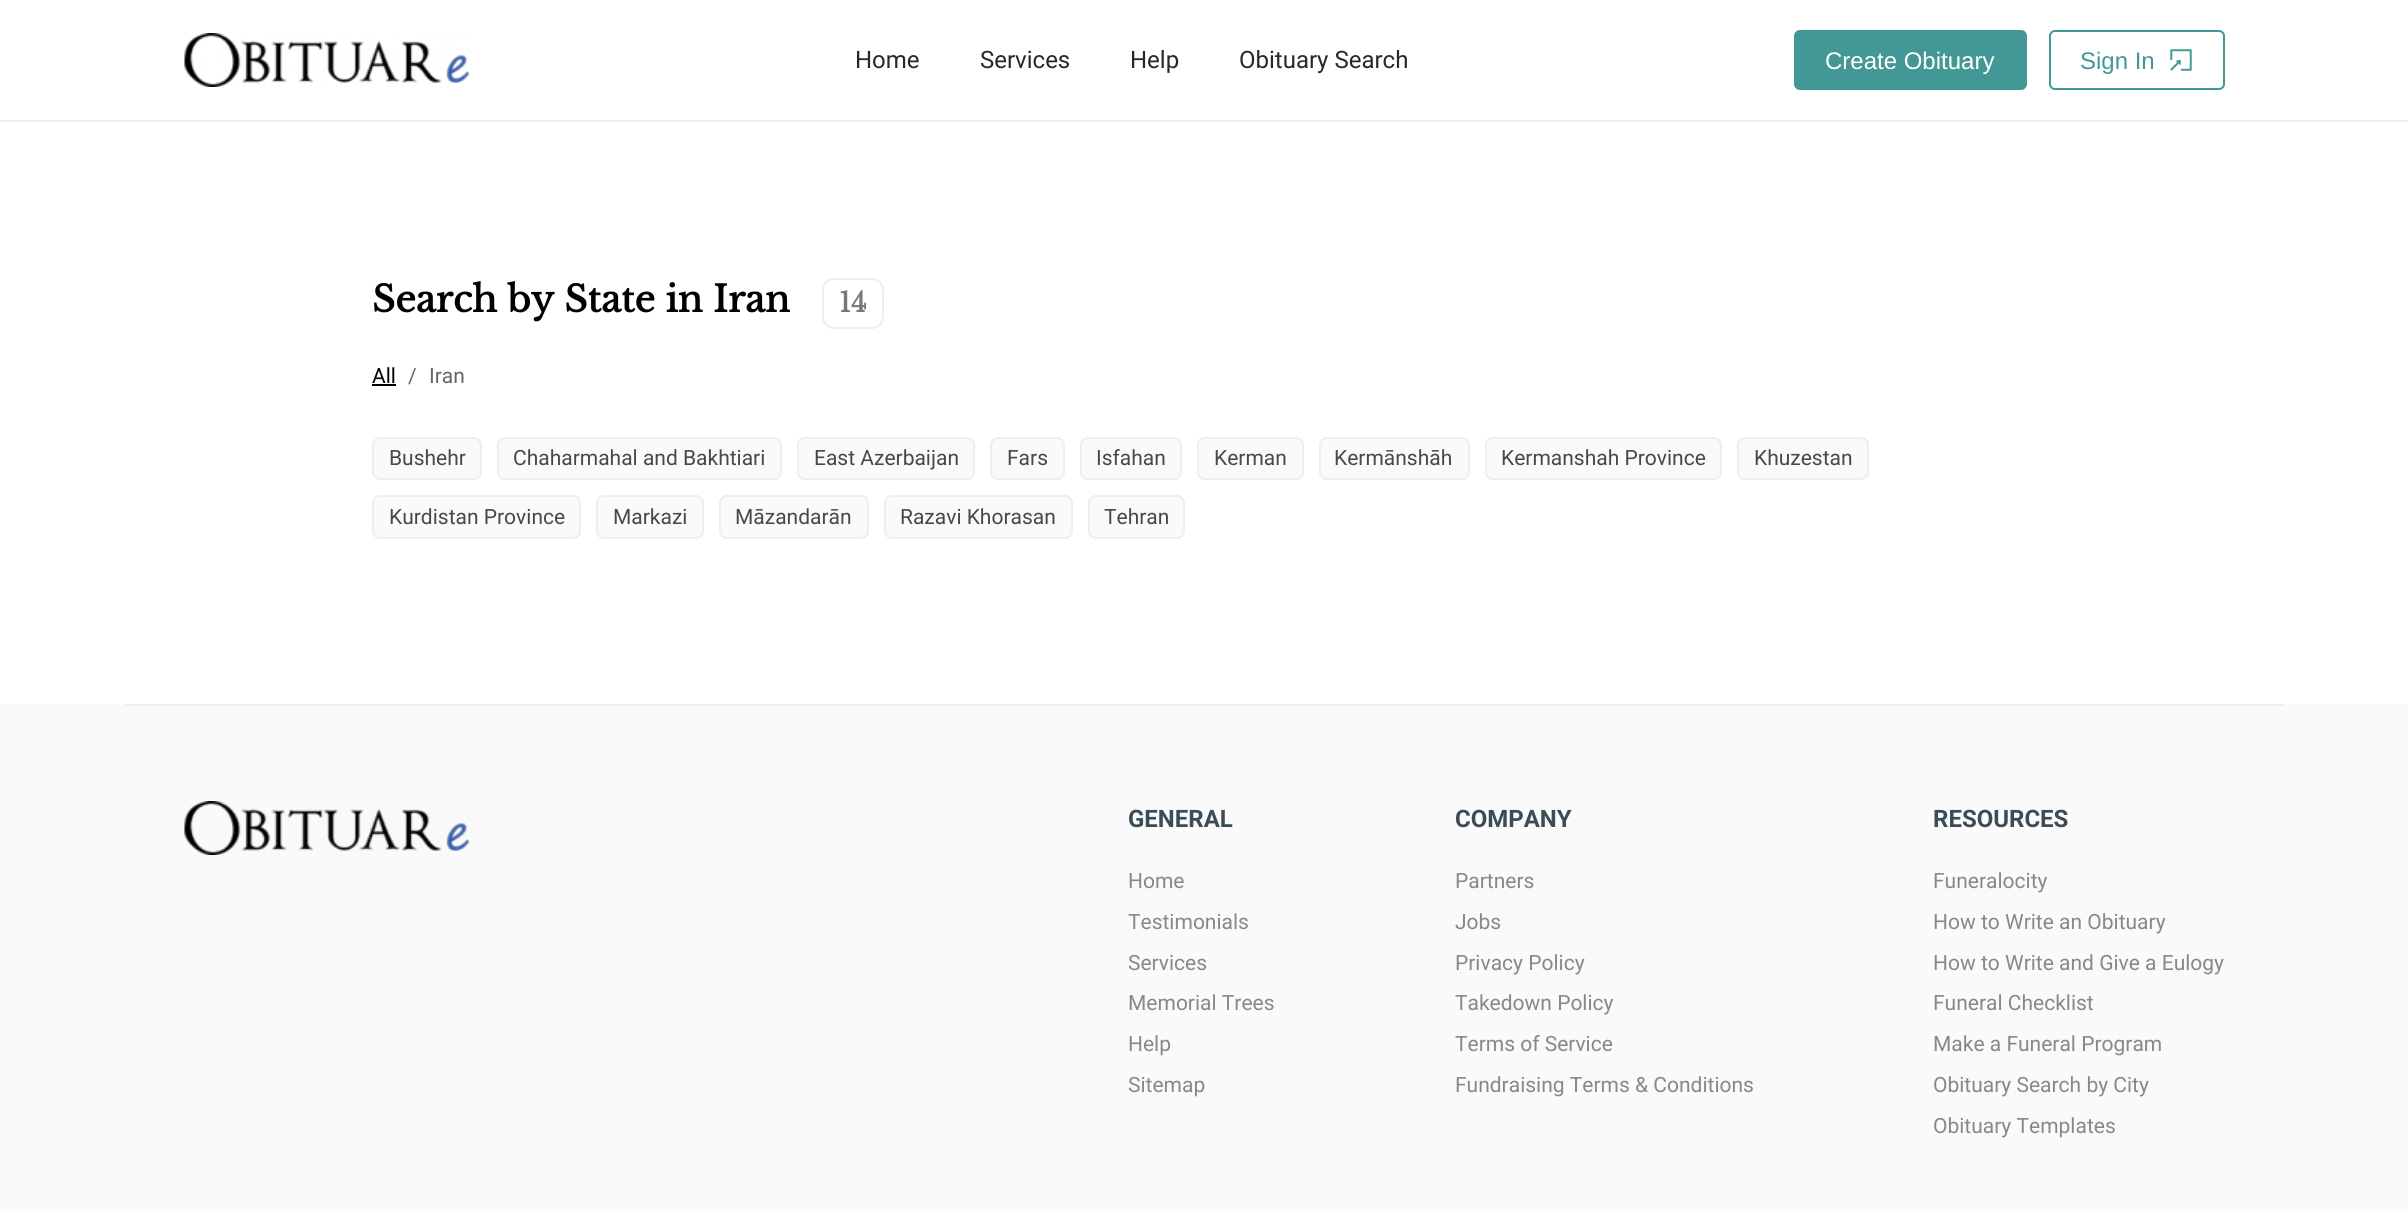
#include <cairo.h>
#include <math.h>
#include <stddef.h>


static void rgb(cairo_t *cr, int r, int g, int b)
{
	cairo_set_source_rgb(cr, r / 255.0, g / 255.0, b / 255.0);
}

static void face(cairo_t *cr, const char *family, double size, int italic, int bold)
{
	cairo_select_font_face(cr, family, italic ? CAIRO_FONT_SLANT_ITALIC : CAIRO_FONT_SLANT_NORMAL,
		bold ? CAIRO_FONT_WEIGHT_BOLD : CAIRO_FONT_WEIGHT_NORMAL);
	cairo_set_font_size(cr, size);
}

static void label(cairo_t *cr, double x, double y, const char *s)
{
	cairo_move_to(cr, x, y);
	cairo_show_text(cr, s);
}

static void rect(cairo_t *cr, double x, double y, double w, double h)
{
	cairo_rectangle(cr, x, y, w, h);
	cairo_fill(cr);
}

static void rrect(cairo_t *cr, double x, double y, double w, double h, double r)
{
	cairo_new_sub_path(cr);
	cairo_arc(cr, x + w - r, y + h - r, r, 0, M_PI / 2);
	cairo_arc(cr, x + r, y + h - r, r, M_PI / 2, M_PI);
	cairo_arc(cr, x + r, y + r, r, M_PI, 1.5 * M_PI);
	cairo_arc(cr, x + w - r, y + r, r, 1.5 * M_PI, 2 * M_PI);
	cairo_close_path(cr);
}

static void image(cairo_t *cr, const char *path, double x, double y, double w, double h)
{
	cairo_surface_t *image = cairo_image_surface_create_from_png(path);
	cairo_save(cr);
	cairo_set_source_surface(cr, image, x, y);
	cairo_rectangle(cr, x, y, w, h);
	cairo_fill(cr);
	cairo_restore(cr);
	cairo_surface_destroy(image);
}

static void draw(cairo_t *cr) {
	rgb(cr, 255, 255, 255);
	cairo_paint(cr);
	rgb(cr, 238, 238, 238);
	rect(cr, 0, 120, 2408, 2);
	image(cr, "image0.png", 184, 33, 286, 54);
	face(cr, "Roboto", 24, 0, 0);
	rgb(cr, 40, 40, 40);
	label(cr, 855, 68, "Home");
	label(cr, 980, 68, "Services");
	label(cr, 1130, 68, "Help");
	label(cr, 1239, 68, "Obituary Search");
	rgb(cr, 67, 151, 148);
	rrect(cr, 1795, 31, 231, 58, 5);
	cairo_fill_preserve(cr);
	cairo_stroke(cr);
	face(cr, "Liberation Sans", 24, 0, 0);
	rgb(cr, 255, 255, 255);
	label(cr, 1825, 69, "Create Obituary");
	rrect(cr, 2050, 31, 174, 58, 5);
	rgb(cr, 67, 151, 148);
	cairo_stroke(cr);
	label(cr, 2080, 69, "Sign In");
	image(cr, "image1.png", 2170, 49, 22, 22);
	face(cr, "Libre Baskerville", 36, 0, 1);
	rgb(cr, 0, 0, 0);
	label(cr, 372, 312, "Search by State in Iran");
	rrect(cr, 823, 279, 60, 49, 11);
	rgb(cr, 238, 238, 238);
	cairo_stroke(cr);
	face(cr, "Libre Baskerville", 27, 0, 1);
	rgb(cr, 120, 120, 120);
	label(cr, 839, 312, "14");
	face(cr, "Roboto", 21, 0, 0);
	rgb(cr, 0, 0, 0);
	label(cr, 372, 383, "All");
	rect(cr, 372, 384, 24, 2);
	rgb(cr, 102, 102, 102);
	label(cr, 408, 383, "/");
	label(cr, 429, 383, "Iran");
	rgb(cr, 250, 250, 250);
	rrect(cr, 373, 438, 108, 41, 7);
	cairo_fill_preserve(cr);
	rgb(cr, 238, 238, 238);
	cairo_stroke(cr);
	rgb(cr, 72, 72, 72);
	label(cr, 389, 465, "Bushehr");
	rgb(cr, 250, 250, 250);
	rrect(cr, 498, 438, 283, 41, 7);
	cairo_fill_preserve(cr);
	rgb(cr, 238, 238, 238);
	cairo_stroke(cr);
	rgb(cr, 72, 72, 72);
	label(cr, 513, 465, "Chaharmahal and Bakhtiari");
	rgb(cr, 250, 250, 250);
	rrect(cr, 798, 438, 176, 41, 7);
	cairo_fill_preserve(cr);
	rgb(cr, 238, 238, 238);
	cairo_stroke(cr);
	rgb(cr, 72, 72, 72);
	label(cr, 814, 465, "East Azerbaijan");
	rgb(cr, 250, 250, 250);
	rrect(cr, 991, 438, 73, 41, 7);
	cairo_fill_preserve(cr);
	rgb(cr, 238, 238, 238);
	cairo_stroke(cr);
	rgb(cr, 72, 72, 72);
	label(cr, 1007, 465, "Fars");
	rgb(cr, 250, 250, 250);
	rrect(cr, 1081, 438, 100, 41, 7);
	cairo_fill_preserve(cr);
	rgb(cr, 238, 238, 238);
	cairo_stroke(cr);
	rgb(cr, 72, 72, 72);
	label(cr, 1096, 465, "Isfahan");
	rgb(cr, 250, 250, 250);
	rrect(cr, 1198, 438, 105, 41, 7);
	cairo_fill_preserve(cr);
	rgb(cr, 238, 238, 238);
	cairo_stroke(cr);
	rgb(cr, 72, 72, 72);
	label(cr, 1214, 465, "Kerman");
	rgb(cr, 250, 250, 250);
	rrect(cr, 1320, 438, 149, 41, 7);
	cairo_fill_preserve(cr);
	rgb(cr, 238, 238, 238);
	cairo_stroke(cr);
	rgb(cr, 72, 72, 72);
	label(cr, 1334, 465, "Kermānshāh");
	rgb(cr, 250, 250, 250);
	rrect(cr, 1486, 438, 235, 41, 7);
	cairo_fill_preserve(cr);
	rgb(cr, 238, 238, 238);
	cairo_stroke(cr);
	rgb(cr, 72, 72, 72);
	label(cr, 1501, 465, "Kermanshah Province");
	rgb(cr, 250, 250, 250);
	rrect(cr, 1738, 438, 130, 41, 7);
	cairo_fill_preserve(cr);
	rgb(cr, 238, 238, 238);
	cairo_stroke(cr);
	rgb(cr, 72, 72, 72);
	label(cr, 1754, 465, "Khuzestan");
	rgb(cr, 250, 250, 250);
	rrect(cr, 373, 496, 207, 42, 7);
	cairo_fill_preserve(cr);
	rgb(cr, 238, 238, 238);
	cairo_stroke(cr);
	rgb(cr, 72, 72, 72);
	label(cr, 389, 524, "Kurdistan Province");
	rgb(cr, 250, 250, 250);
	rrect(cr, 597, 496, 106, 42, 7);
	cairo_fill_preserve(cr);
	rgb(cr, 238, 238, 238);
	cairo_stroke(cr);
	rgb(cr, 72, 72, 72);
	label(cr, 613, 524, "Markazi");
	rgb(cr, 250, 250, 250);
	rrect(cr, 720, 496, 148, 42, 7);
	cairo_fill_preserve(cr);
	rgb(cr, 238, 238, 238);
	cairo_stroke(cr);
	rgb(cr, 72, 72, 72);
	label(cr, 735, 524, "Māzandarān");
	rgb(cr, 250, 250, 250);
	rrect(cr, 885, 496, 187, 42, 7);
	cairo_fill_preserve(cr);
	rgb(cr, 238, 238, 238);
	cairo_stroke(cr);
	rgb(cr, 72, 72, 72);
	label(cr, 900, 524, "Razavi Khorasan");
	rgb(cr, 250, 250, 250);
	rrect(cr, 1089, 496, 95, 42, 7);
	cairo_fill_preserve(cr);
	rgb(cr, 238, 238, 238);
	cairo_stroke(cr);
	rgb(cr, 72, 72, 72);
	label(cr, 1104, 524, "Tehran");
	rgb(cr, 250, 250, 250);
	rect(cr, 0, 704, 2408, 507);
	rgb(cr, 238, 238, 238);
	rect(cr, 125, 704, 2160, 2);
	image(cr, "image2.png", 184, 801, 286, 54);
	face(cr, "Roboto", 24, 0, 1);
	rgb(cr, 58, 77, 87);
	label(cr, 1128, 827, "GENERAL");
	face(cr, "Roboto", 21, 0, 0);
	rgb(cr, 136, 136, 136);
	label(cr, 1128, 888, "Home");
	label(cr, 1128, 929, "Testimonials");
	label(cr, 1128, 970, "Services");
	label(cr, 1128, 1010, "Memorial Trees");
	label(cr, 1128, 1051, "Help");
	label(cr, 1128, 1092, "Sitemap");
	face(cr, "Roboto", 24, 0, 1);
	rgb(cr, 58, 77, 87);
	label(cr, 1455, 827, "COMPANY");
	face(cr, "Roboto", 21, 0, 0);
	rgb(cr, 136, 136, 136);
	label(cr, 1455, 888, "Partners");
	label(cr, 1455, 929, "Jobs");
	label(cr, 1455, 970, "Privacy Policy");
	label(cr, 1455, 1010, "Takedown Policy");
	label(cr, 1455, 1051, "Terms of Service");
	label(cr, 1455, 1092, "Fundraising Terms & Conditions");
	face(cr, "Roboto", 24, 0, 1);
	rgb(cr, 58, 77, 87);
	label(cr, 1933, 827, "RESOURCES");
	face(cr, "Roboto", 21, 0, 0);
	rgb(cr, 136, 136, 136);
	label(cr, 1933, 888, "Funeralocity");
	label(cr, 1933, 929, "How to Write an Obituary");
	label(cr, 1933, 970, "How to Write and Give a Eulogy");
	label(cr, 1933, 1010, "Funeral Checklist");
	label(cr, 1933, 1051, "Make a Funeral Program");
	label(cr, 1933, 1092, "Obituary Search by City");
	label(cr, 1933, 1133, "Obituary Templates");
}

int main(void) {
	cairo_surface_t *surface = cairo_image_surface_create(CAIRO_FORMAT_RGB24, 2408, 1211);
	cairo_t *cr = cairo_create(surface);
	cairo_font_options_t *options = cairo_font_options_create();
	cairo_font_options_set_hint_metrics(options, CAIRO_HINT_METRICS_OFF);
	cairo_font_options_set_hint_style(options, CAIRO_HINT_STYLE_NONE);
	cairo_set_font_options(cr, options);
	cairo_set_miter_limit(cr, 4);
	draw(cr);
	cairo_surface_write_to_png(surface, "render.png");
	cairo_font_options_destroy(options);
	cairo_destroy(cr);
	cairo_surface_destroy(surface);
	return 0;
}
